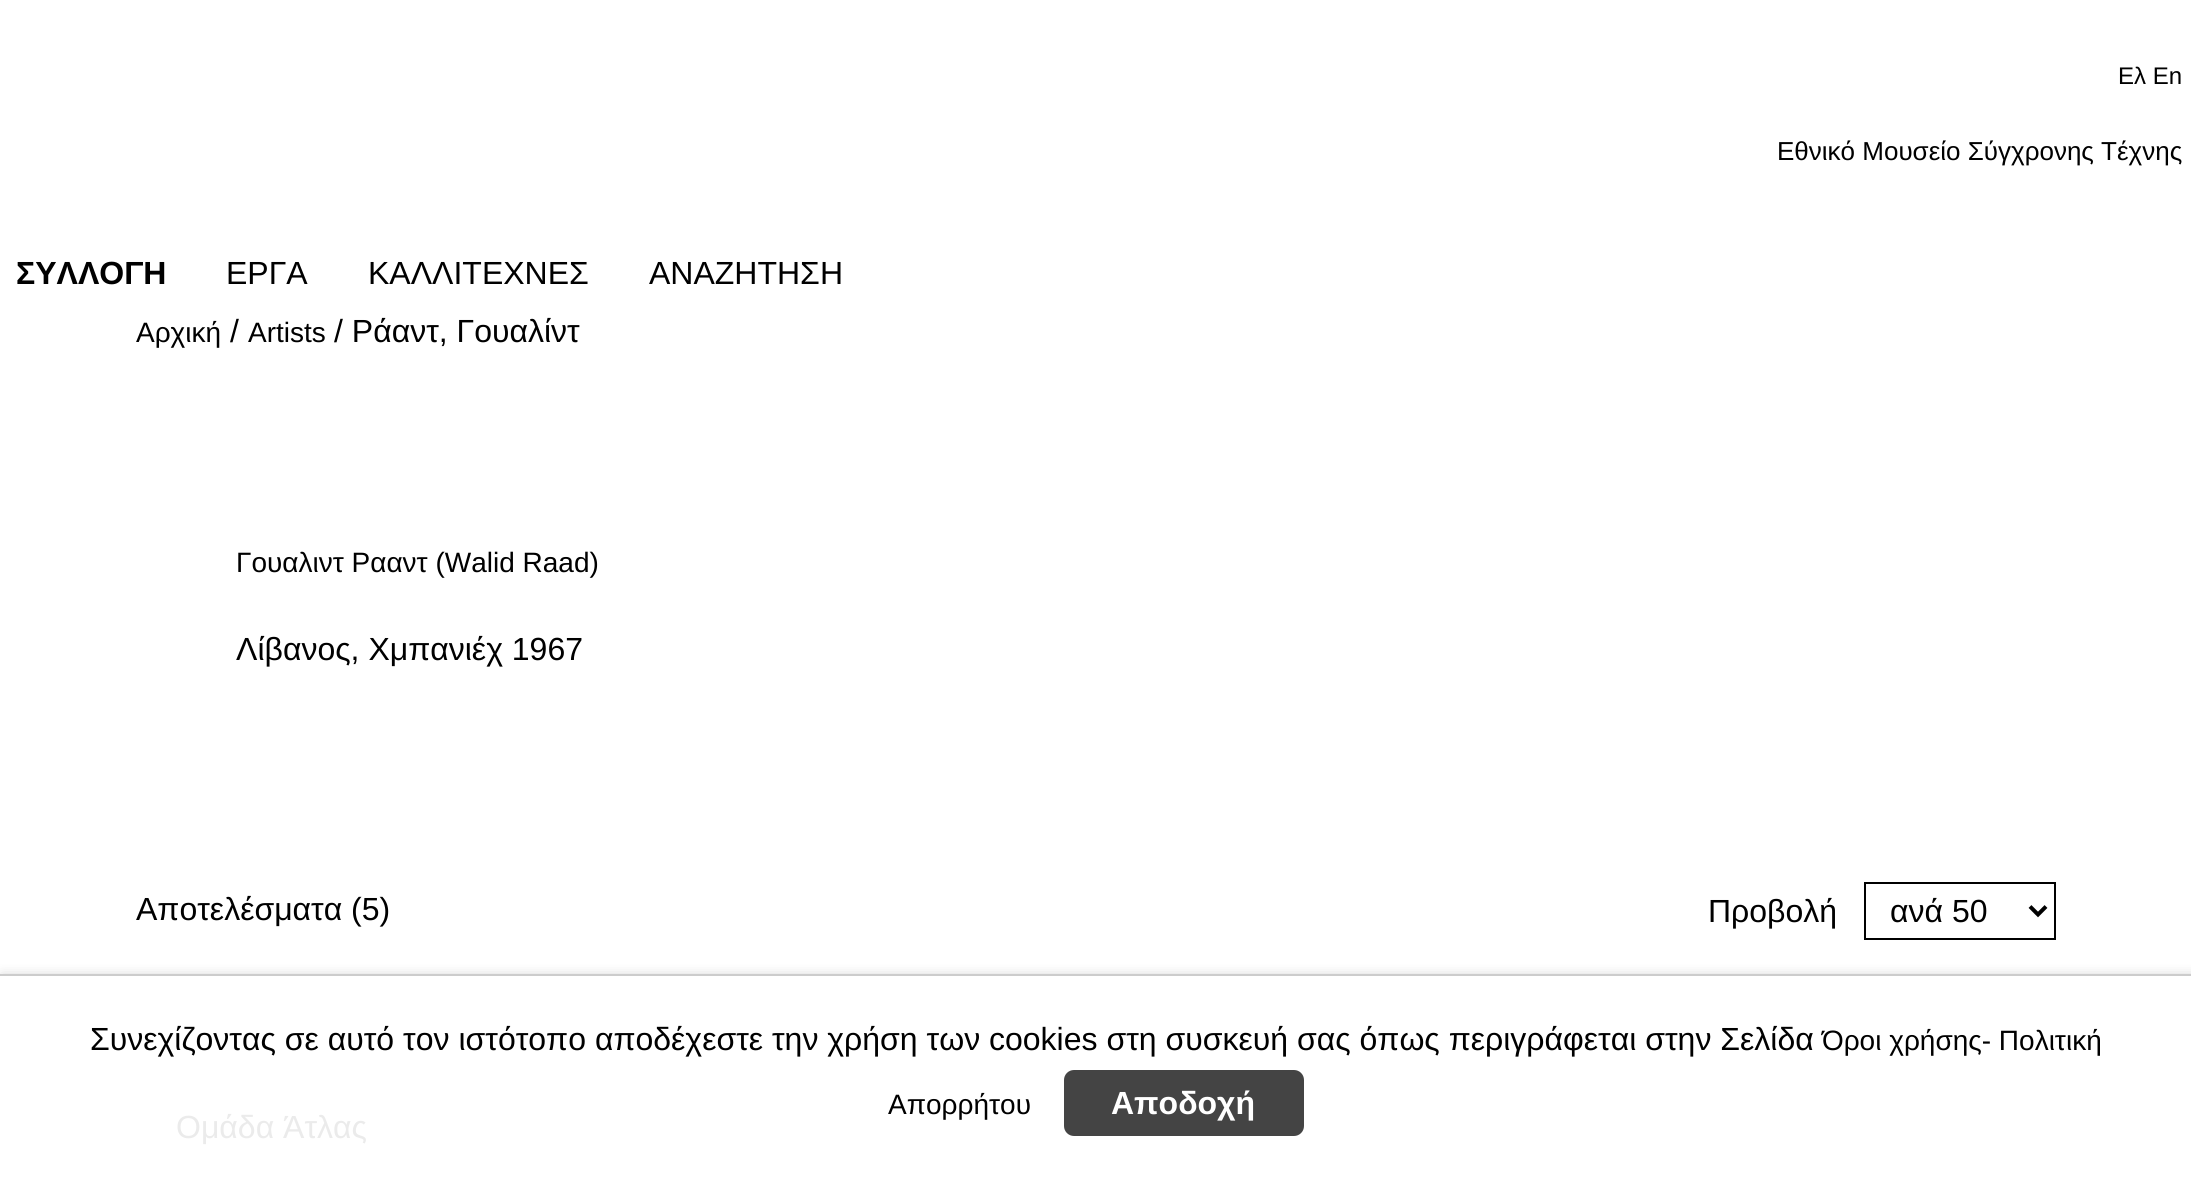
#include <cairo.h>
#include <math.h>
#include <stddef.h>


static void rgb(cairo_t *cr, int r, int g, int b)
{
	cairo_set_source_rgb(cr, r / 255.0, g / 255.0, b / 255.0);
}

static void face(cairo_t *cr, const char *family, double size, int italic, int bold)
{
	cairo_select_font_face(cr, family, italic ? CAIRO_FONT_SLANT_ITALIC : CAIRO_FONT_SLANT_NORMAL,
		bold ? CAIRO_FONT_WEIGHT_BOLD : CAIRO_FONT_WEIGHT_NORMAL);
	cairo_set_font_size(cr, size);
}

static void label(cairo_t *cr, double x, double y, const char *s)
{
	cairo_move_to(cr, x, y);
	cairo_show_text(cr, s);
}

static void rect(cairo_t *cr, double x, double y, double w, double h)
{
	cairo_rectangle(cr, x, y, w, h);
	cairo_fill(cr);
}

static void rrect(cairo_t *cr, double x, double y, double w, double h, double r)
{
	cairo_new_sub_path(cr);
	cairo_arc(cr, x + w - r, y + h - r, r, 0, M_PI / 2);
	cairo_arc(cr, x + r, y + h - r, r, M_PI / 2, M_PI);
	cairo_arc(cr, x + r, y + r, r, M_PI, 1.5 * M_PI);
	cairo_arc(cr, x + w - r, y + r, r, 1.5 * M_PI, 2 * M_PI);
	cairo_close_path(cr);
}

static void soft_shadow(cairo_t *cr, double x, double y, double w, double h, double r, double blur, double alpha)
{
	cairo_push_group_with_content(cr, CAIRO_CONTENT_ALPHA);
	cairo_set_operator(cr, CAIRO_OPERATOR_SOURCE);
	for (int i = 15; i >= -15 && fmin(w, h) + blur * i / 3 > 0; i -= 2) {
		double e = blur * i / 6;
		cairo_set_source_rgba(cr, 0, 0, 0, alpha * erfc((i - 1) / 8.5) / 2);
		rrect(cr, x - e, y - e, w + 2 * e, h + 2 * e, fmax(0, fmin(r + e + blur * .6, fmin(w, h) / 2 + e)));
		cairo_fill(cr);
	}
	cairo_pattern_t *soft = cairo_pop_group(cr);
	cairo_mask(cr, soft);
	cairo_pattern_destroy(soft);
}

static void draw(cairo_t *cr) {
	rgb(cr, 255, 255, 255);
	cairo_paint(cr);
	face(cr, "Liberation Sans", 24, 0, 0);
	rgb(cr, 0, 0, 0);
	label(cr, 2118, 84, "Ελ En");
	face(cr, "Liberation Sans", 26, 0, 0);
	label(cr, 1777, 160, "Εθνικό Μουσείο Σύγχρονης Τέχνης");
	face(cr, "Liberation Sans", 32, 0, 1);
	label(cr, 16, 284, "ΣΥΛΛΟΓΗ");
	face(cr, "Liberation Sans", 32, 0, 0);
	label(cr, 226, 284, "ΕΡΓΑ");
	label(cr, 368, 284, "ΚΑΛΛΙΤΕΧΝΕΣ");
	label(cr, 649, 284, "ΑΝΑΖΗΤΗΣΗ");
	face(cr, "Liberation Sans", 28, 0, 0);
	label(cr, 136, 342, "Αρχική");
	face(cr, "Liberation Sans", 32, 0, 0);
	label(cr, 230, 342, "/");
	face(cr, "Liberation Sans", 28, 0, 0);
	label(cr, 248, 342, "Artists");
	face(cr, "Liberation Sans", 32, 0, 0);
	label(cr, 334, 342, "/ Ράαντ, Γουαλίντ");
	face(cr, "Liberation Sans", 28, 0, 0);
	label(cr, 236, 572, "Γουαλιντ Ρααντ (Walid Raad)");
	face(cr, "Liberation Sans", 32, 0, 0);
	label(cr, 236, 660, "Λίβανος, Χμπανιέχ 1967");
	label(cr, 136, 920, "Αποτελέσματα (5)");
	label(cr, 1708, 922, "Προβολή");
	cairo_rectangle(cr, 1865, 883, 190, 56);
	cairo_stroke(cr);
	cairo_new_path(cr);
	cairo_move_to(cr, 2030, 906.5);
	cairo_line_to(cr, 2038, 914.5);
	cairo_line_to(cr, 2046, 906.5);
	cairo_set_line_width(cr, 4);
	cairo_stroke(cr);
	label(cr, 1890, 922, "ανά 50");
	rgb(cr, 235, 235, 235);
	label(cr, 176, 1138, "Ομάδα Άτλας");
	cairo_save(cr);
	cairo_rectangle(cr, 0, 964, 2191, 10);
	cairo_clip(cr);
	rgb(cr, 204, 204, 204);
	soft_shadow(cr, 2, 976, 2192, 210, 0, 6, 1);
	cairo_restore(cr);
	rgb(cr, 204, 204, 204);
	rect(cr, 0, 974, 2191, 2);
	rgb(cr, 0, 0, 0);
	label(cr, 90, 1050, "Συνεχίζοντας σε αυτό τον ιστότοπο αποδέχεστε την χρήση των cookies στη συσκευή σας όπως περιγράφεται στην Σελίδα");
	face(cr, "Liberation Sans", 28, 0, 0);
	label(cr, 1822, 1050, "Όροι χρήσης- Πολιτική");
	label(cr, 888, 1114, "Απορρήτου");
	rgb(cr, 68, 68, 68);
	rrect(cr, 1064, 1070, 240, 66, 10);
	cairo_fill(cr);
	face(cr, "Liberation Sans", 32, 0, 1);
	rgb(cr, 255, 255, 255);
	label(cr, 1111, 1114, "Αποδοχή");
}

int main(void) {
	cairo_surface_t *surface = cairo_image_surface_create(CAIRO_FORMAT_RGB24, 2191, 1183);
	cairo_t *cr = cairo_create(surface);
	cairo_font_options_t *options = cairo_font_options_create();
	cairo_font_options_set_hint_metrics(options, CAIRO_HINT_METRICS_OFF);
	cairo_font_options_set_hint_style(options, CAIRO_HINT_STYLE_NONE);
	cairo_set_font_options(cr, options);
	cairo_set_miter_limit(cr, 4);
	draw(cr);
	cairo_surface_write_to_png(surface, "render.png");
	cairo_font_options_destroy(options);
	cairo_destroy(cr);
	cairo_surface_destroy(surface);
	return 0;
}
